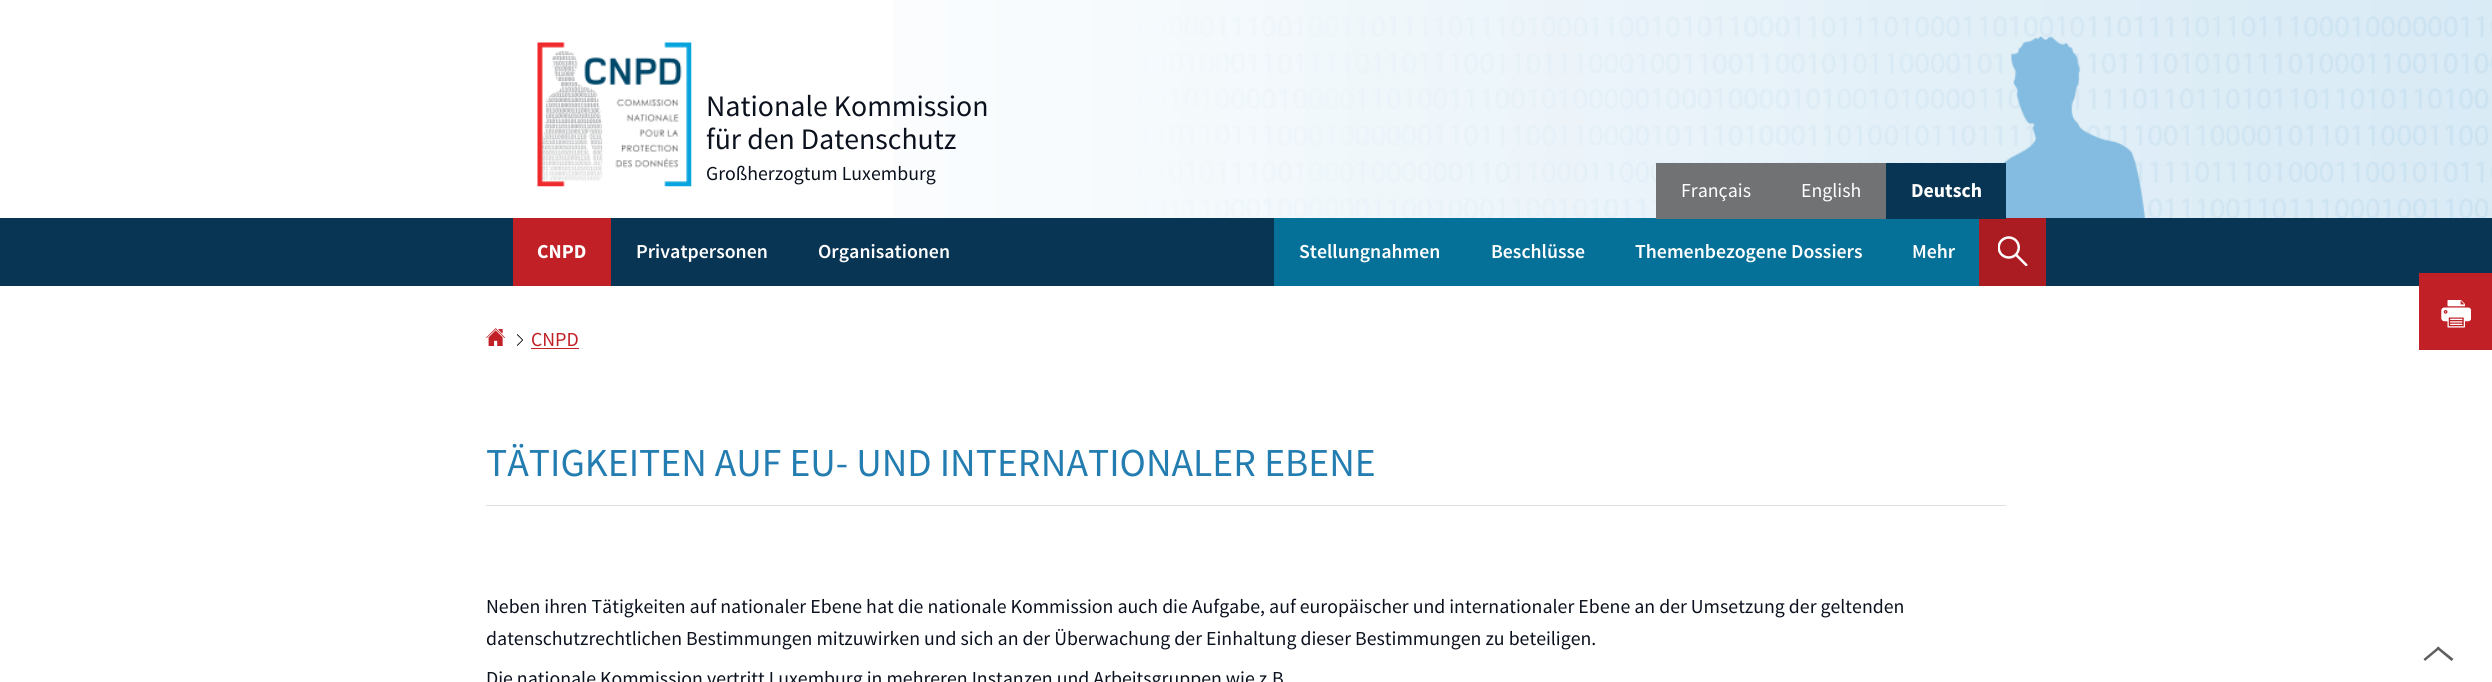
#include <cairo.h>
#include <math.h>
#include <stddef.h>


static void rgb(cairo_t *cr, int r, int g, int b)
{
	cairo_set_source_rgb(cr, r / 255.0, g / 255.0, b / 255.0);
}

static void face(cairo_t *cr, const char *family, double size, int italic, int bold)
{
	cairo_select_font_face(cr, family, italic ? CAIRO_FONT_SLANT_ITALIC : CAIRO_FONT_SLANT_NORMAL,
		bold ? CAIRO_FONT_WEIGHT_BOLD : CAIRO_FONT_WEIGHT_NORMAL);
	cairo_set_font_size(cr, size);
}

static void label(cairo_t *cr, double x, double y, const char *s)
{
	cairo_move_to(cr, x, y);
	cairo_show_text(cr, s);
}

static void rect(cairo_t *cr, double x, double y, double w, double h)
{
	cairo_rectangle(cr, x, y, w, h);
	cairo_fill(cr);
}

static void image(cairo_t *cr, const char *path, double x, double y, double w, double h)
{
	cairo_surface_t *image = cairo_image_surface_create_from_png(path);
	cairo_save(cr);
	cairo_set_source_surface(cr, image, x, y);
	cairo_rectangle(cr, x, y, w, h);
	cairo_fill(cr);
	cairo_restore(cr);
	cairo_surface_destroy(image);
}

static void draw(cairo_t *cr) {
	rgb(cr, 255, 255, 255);
	cairo_paint(cr);
	image(cr, "image0.png", 894, 0, 1598, 218);
	image(cr, "image1.png", 537, 42, 155, 145);
	face(cr, "Source Sans Pro", 29.75, 0, 0);
	rgb(cr, 11, 18, 30);
	label(cr, 706, 116, "Nationale Kommission");
	label(cr, 706, 149, "für den Datenschutz");
	face(cr, "Source Sans Pro", 19.8, 0, 0);
	label(cr, 706, 180, "Großherzogtum Luxemburg");
	rgb(cr, 9, 53, 84);
	rect(cr, 0, 218, 2492, 68);
	rgb(cr, 5, 112, 152);
	rect(cr, 1274, 218, 614, 68);
	rgb(cr, 113, 114, 116);
	rect(cr, 1656, 163, 230, 56);
	rgb(cr, 255, 255, 255);
	label(cr, 1681, 197, "Français");
	label(cr, 1801, 197, "English");
	rgb(cr, 170, 28, 34);
	rect(cr, 1979, 218, 67, 68);
	rgb(cr, 9, 53, 84);
	rect(cr, 1886, 163, 120, 56);
	face(cr, "Source Sans Pro", 19.8, 0, 1);
	rgb(cr, 255, 255, 255);
	label(cr, 1911, 197, "Deutsch");
	rgb(cr, 192, 32, 38);
	rect(cr, 513, 218, 98, 68);
	rgb(cr, 255, 255, 255);
	label(cr, 537, 258, "CNPD");
	face(cr, "Source Sans Pro SemiBold", 19.8, 0, 0);
	label(cr, 636, 258, "Privatpersonen");
	label(cr, 818, 258, "Organisationen");
	label(cr, 1299, 258, "Stellungnahmen");
	label(cr, 1491, 258, "Beschlüsse");
	label(cr, 1635, 258, "Themenbezogene Dossiers");
	rgb(cr, 5, 112, 152);
	rect(cr, 1888, 219, 91, 67);
	rgb(cr, 255, 255, 255);
	label(cr, 1912, 258, "Mehr");
	image(cr, "image2.png", 1998, 236, 30, 30);
	image(cr, "image3.png", 486, 328, 19, 18);
	image(cr, "image4.png", 517, 334, 6, 12);
	face(cr, "Source Sans Pro", 19.8, 0, 0);
	rgb(cr, 192, 32, 38);
	label(cr, 531, 346, "CNPD");
	rect(cr, 531, 348, 48, 1);
	rect(cr, 2419, 273, 73, 77);
	image(cr, "image5.png", 2441, 300, 30, 28);
	rgb(cr, 224, 224, 224);
	rect(cr, 486, 505, 1520, 1);
	face(cr, "Source Sans Pro", 39.6, 0, 0);
	rgb(cr, 35, 125, 177);
	label(cr, 486, 476, "TÄTIGKEITEN AUF EU- UND INTERNATIONALER EBENE");
	face(cr, "Source Sans Pro", 19.8, 0, 0);
	rgb(cr, 11, 18, 30);
	label(cr, 486, 613, "Neben ihren Tätigkeiten auf nationaler Ebene hat die nationale Kommission auch die Aufgabe, auf europäischer und internationaler Ebene an der Umsetzung der geltenden");
	label(cr, 486, 645, "datenschutzrechtlichen Bestimmungen mitzuwirken und sich an der Überwachung der Einhaltung dieser Bestimmungen zu beteiligen.");
	label(cr, 486, 685, "Die nationale Kommission vertritt Luxemburg in mehreren Instanzen und Arbeitsgruppen wie z.B");
	rgb(cr, 95, 95, 95);
	cairo_new_path(cr);
	cairo_move_to(cr, 2423.5, 659);
	cairo_line_to(cr, 2438.5, 646.5);
	cairo_line_to(cr, 2440, 648.5);
	cairo_line_to(cr, 2425, 661);
	cairo_close_path(cr);
	cairo_fill(cr);
	cairo_new_path(cr);
	cairo_move_to(cr, 2438, 646.5);
	cairo_line_to(cr, 2453.5, 659);
	cairo_line_to(cr, 2451.5, 661);
	cairo_line_to(cr, 2436.5, 648.5);
	cairo_close_path(cr);
	cairo_fill(cr);
}

int main(void) {
	cairo_surface_t *surface = cairo_image_surface_create(CAIRO_FORMAT_RGB24, 2492, 682);
	cairo_t *cr = cairo_create(surface);
	cairo_font_options_t *options = cairo_font_options_create();
	cairo_font_options_set_hint_metrics(options, CAIRO_HINT_METRICS_OFF);
	cairo_font_options_set_hint_style(options, CAIRO_HINT_STYLE_NONE);
	cairo_set_font_options(cr, options);
	cairo_set_miter_limit(cr, 4);
	draw(cr);
	cairo_surface_write_to_png(surface, "render.png");
	cairo_font_options_destroy(options);
	cairo_destroy(cr);
	cairo_surface_destroy(surface);
	return 0;
}
